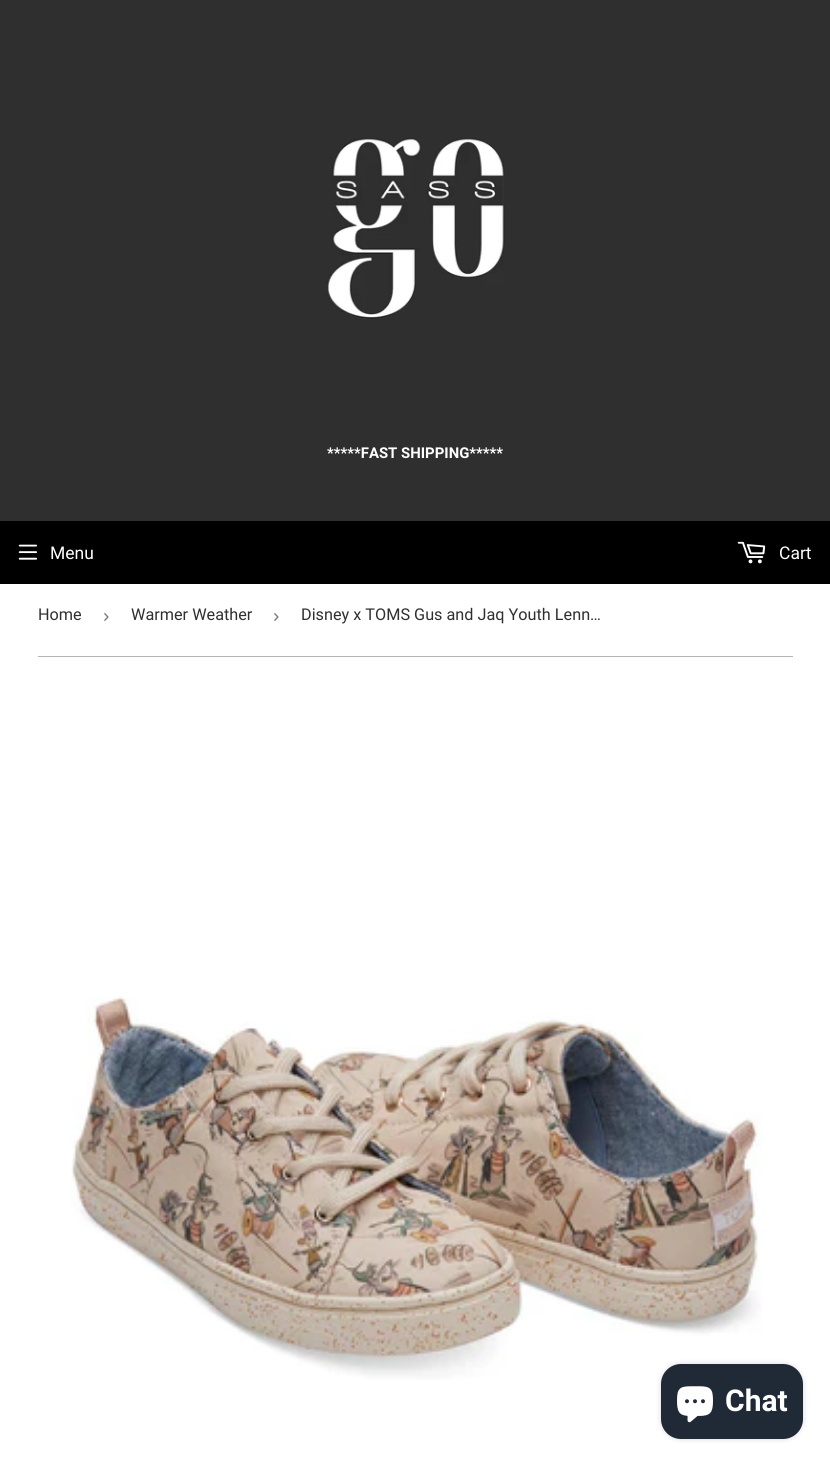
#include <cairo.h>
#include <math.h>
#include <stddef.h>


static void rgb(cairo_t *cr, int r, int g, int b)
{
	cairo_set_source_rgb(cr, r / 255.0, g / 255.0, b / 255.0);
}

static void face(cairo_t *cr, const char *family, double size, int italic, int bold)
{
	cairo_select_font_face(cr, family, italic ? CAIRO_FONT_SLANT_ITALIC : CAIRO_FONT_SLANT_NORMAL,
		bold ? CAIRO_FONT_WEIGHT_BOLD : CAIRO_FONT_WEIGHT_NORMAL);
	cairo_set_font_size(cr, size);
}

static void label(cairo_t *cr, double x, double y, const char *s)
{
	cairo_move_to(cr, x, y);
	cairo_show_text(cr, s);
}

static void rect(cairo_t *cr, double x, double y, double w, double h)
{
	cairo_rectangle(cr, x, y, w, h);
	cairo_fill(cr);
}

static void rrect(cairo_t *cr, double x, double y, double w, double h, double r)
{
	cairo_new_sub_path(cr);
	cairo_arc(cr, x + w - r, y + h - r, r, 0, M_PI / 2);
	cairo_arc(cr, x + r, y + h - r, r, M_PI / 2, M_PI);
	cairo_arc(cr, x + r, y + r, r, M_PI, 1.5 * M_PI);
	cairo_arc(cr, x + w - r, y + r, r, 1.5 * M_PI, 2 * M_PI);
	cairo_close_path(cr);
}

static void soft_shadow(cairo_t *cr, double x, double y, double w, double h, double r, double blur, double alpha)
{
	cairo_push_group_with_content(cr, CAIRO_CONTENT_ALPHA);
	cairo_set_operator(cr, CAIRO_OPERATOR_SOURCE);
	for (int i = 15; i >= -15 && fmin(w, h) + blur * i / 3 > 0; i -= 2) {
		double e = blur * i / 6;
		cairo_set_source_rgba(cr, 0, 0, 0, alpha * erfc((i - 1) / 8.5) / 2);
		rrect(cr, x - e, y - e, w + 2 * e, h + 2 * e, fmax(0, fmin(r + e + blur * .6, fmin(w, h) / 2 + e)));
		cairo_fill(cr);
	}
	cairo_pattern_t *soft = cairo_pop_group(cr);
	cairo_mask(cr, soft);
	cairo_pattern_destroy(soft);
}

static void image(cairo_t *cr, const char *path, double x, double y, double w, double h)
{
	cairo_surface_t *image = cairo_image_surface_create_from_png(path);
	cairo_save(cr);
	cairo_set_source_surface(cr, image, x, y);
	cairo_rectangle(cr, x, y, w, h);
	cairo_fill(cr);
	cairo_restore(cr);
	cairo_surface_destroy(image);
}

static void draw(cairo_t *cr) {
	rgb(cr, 255, 255, 255);
	cairo_paint(cr);
	rgb(cr, 47, 47, 47);
	rect(cr, 0, 0, 830, 521);
	image(cr, "image0.png", 325, 138, 180, 181);
	face(cr, "Roboto", 14.9, 0, 1);
	rgb(cr, 255, 255, 255);
	label(cr, 327, 458, "*****FAST SHIPPING*****");
	rgb(cr, 0, 0, 0);
	rect(cr, 0, 521, 830, 63);
	image(cr, "image1.png", 18, 544, 20, 16);
	face(cr, "Roboto", 17.5, 0, 0);
	rgb(cr, 255, 255, 255);
	label(cr, 50, 559, "Menu");
	image(cr, "image2.png", 737, 541, 29, 23);
	label(cr, 779, 559, "Cart");
	rgb(cr, 187, 179, 179);
	rect(cr, 38, 656, 755, 1);
	face(cr, "Roboto", 16.25, 0, 0);
	rgb(cr, 47, 47, 47);
	label(cr, 38, 620, "Home");
	face(cr, "Liberation Sans", 19, 0, 0);
	rgb(cr, 118, 118, 118);
	label(cr, 103, 622, "›");
	face(cr, "Roboto", 16.25, 0, 0);
	rgb(cr, 47, 47, 47);
	label(cr, 131, 620, "Warmer Weather");
	face(cr, "Liberation Sans", 19, 0, 0);
	rgb(cr, 118, 118, 118);
	label(cr, 273, 622, "›");
	face(cr, "Roboto", 16.25, 0, 0);
	rgb(cr, 47, 47, 47);
	label(cr, 301, 620, "Disney x TOMS Gus and Jaq Youth Lenn…");
	image(cr, "image3.png", 71, 996, 691, 384);
	rgb(cr, 0, 0, 0);
	soft_shadow(cr, 661, 1364, 142, 75, 20, 3, 0.15);
	rgb(cr, 32, 42, 54);
	rrect(cr, 661, 1364, 142, 75, 20);
	cairo_fill(cr);
	image(cr, "image4.png", 677, 1386, 36, 37);
	face(cr, "Roboto", 30, 0, 1);
	rgb(cr, 255, 255, 255);
	label(cr, 725, 1411, "Chat");
}

int main(void) {
	cairo_surface_t *surface = cairo_image_surface_create(CAIRO_FORMAT_RGB24, 830, 1464);
	cairo_t *cr = cairo_create(surface);
	cairo_font_options_t *options = cairo_font_options_create();
	cairo_font_options_set_hint_metrics(options, CAIRO_HINT_METRICS_OFF);
	cairo_font_options_set_hint_style(options, CAIRO_HINT_STYLE_NONE);
	cairo_set_font_options(cr, options);
	cairo_set_miter_limit(cr, 4);
	draw(cr);
	cairo_surface_write_to_png(surface, "render.png");
	cairo_font_options_destroy(options);
	cairo_destroy(cr);
	cairo_surface_destroy(surface);
	return 0;
}
